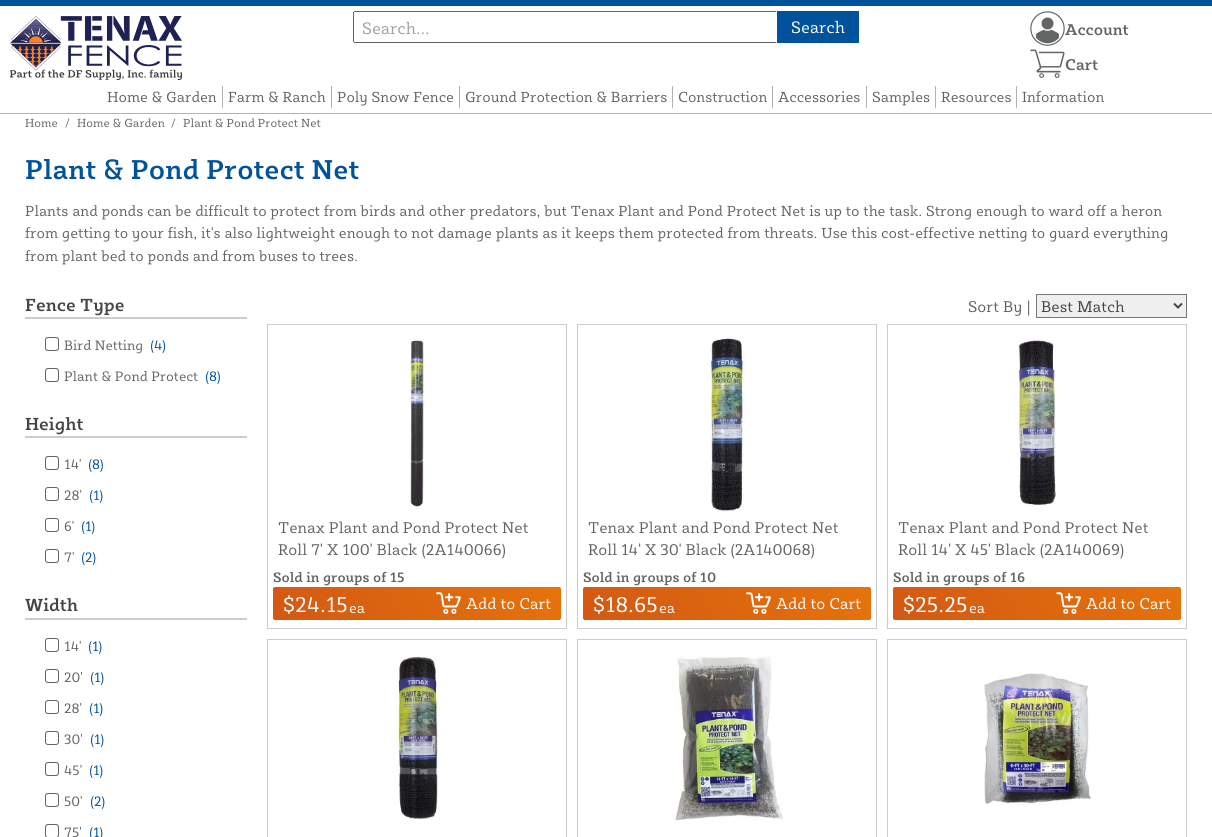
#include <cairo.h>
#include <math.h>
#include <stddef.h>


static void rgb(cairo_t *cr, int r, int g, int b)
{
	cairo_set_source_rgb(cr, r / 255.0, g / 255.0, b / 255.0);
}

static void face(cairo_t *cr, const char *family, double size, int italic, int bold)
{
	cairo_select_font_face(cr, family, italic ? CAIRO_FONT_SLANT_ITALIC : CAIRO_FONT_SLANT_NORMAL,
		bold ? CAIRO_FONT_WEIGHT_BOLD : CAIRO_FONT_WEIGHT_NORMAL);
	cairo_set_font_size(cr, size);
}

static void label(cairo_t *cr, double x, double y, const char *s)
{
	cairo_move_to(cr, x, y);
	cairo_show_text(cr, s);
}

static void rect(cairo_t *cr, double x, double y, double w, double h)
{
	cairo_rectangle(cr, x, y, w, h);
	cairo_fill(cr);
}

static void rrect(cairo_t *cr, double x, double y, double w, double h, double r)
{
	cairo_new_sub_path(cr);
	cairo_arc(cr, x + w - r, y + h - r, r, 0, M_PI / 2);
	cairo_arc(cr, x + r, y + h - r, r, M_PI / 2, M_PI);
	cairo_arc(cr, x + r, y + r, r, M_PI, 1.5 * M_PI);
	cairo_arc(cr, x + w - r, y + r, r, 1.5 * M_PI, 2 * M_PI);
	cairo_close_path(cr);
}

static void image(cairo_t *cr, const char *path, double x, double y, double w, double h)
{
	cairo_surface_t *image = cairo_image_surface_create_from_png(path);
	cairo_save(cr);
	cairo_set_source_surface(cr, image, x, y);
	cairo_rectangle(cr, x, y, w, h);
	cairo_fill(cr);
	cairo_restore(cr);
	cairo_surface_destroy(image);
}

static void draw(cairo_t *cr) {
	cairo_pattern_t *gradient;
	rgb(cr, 255, 255, 255);
	cairo_paint(cr);
	rgb(cr, 0, 82, 156);
	rect(cr, 0, 0, 1212, 6);
	rgb(cr, 177, 177, 177);
	rect(cr, 0, 113, 1212, 1);
	image(cr, "image0.png", 10, 16, 172, 64);
	rgb(cr, 99, 99, 99);
	rect(cr, 354, 11, 422, 1);
	rect(cr, 354, 42, 422, 1);
	rect(cr, 353, 12, 1, 30);
	face(cr, "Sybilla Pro", 17, 0, 0);
	rgb(cr, 160, 160, 160);
	label(cr, 362, 34, "Search...");
	gradient = cairo_pattern_create_linear(630, 88, 842, -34);
	cairo_pattern_add_color_stop_rgba(gradient, 0, 0, 0.322, 0.612, 1);
	cairo_pattern_add_color_stop_rgba(gradient, 0.13, 0, 0.322, 0.612, 1);
	cairo_pattern_add_color_stop_rgba(gradient, 0.2, 0, 0.486, 0.91, 1);
	cairo_pattern_add_color_stop_rgba(gradient, 0.27, 0, 0.322, 0.612, 1);
	cairo_pattern_add_color_stop_rgba(gradient, 1, 0, 0.322, 0.612, 1);
	cairo_set_source(cr, gradient);
	cairo_pattern_destroy(gradient);
	rect(cr, 777, 11, 82, 32);
	rgb(cr, 255, 255, 255);
	label(cr, 791, 33, "Search");
	image(cr, "image1.png", 1030, 11, 35, 35);
	face(cr, "Sybilla Pro Medium", 16, 0, 0);
	rgb(cr, 99, 99, 99);
	label(cr, 1065, 35, "Account");
	image(cr, "image2.png", 1030, 49, 35, 29);
	label(cr, 1065, 70, "Cart");
	rgb(cr, 177, 177, 177);
	rect(cr, 222, 86, 1, 22);
	face(cr, "Sybilla Pro", 15, 0, 0);
	rgb(cr, 99, 99, 99);
	label(cr, 107, 102, "Home & Garden");
	rgb(cr, 177, 177, 177);
	rect(cr, 331, 86, 1, 22);
	rgb(cr, 99, 99, 99);
	label(cr, 228, 102, "Farm & Ranch");
	rgb(cr, 177, 177, 177);
	rect(cr, 459, 86, 1, 22);
	rgb(cr, 99, 99, 99);
	label(cr, 337, 102, "Poly Snow Fence");
	rgb(cr, 177, 177, 177);
	rect(cr, 672, 86, 1, 22);
	rgb(cr, 99, 99, 99);
	label(cr, 465, 102, "Ground Protection & Barriers");
	rgb(cr, 177, 177, 177);
	rect(cr, 772, 86, 1, 22);
	rgb(cr, 99, 99, 99);
	label(cr, 678, 102, "Construction");
	rgb(cr, 177, 177, 177);
	rect(cr, 866, 86, 1, 22);
	rgb(cr, 99, 99, 99);
	label(cr, 778, 102, "Accessories");
	rgb(cr, 177, 177, 177);
	rect(cr, 935, 86, 1, 22);
	rgb(cr, 99, 99, 99);
	label(cr, 872, 102, "Samples");
	rgb(cr, 177, 177, 177);
	rect(cr, 1016, 86, 1, 22);
	rgb(cr, 99, 99, 99);
	label(cr, 941, 102, "Resources");
	label(cr, 1022, 102, "Information");
	face(cr, "Sybilla Pro", 12, 0, 0);
	label(cr, 25, 127, "Home");
	label(cr, 65, 127, "/");
	label(cr, 77, 127, "Home & Garden");
	label(cr, 171, 127, "/");
	label(cr, 183, 127, "Plant & Pond Protect Net");
	face(cr, "Sybilla Pro Medium", 28, 0, 0);
	rgb(cr, 0, 82, 156);
	label(cr, 25, 179, "Plant & Pond Protect Net");
	face(cr, "Sybilla Pro", 15, 0, 0);
	rgb(cr, 99, 99, 99);
	label(cr, 25, 216, "Plants and ponds can be difficult to protect from birds and other predators, but Tenax Plant and Pond Protect Net is up to the task. Strong enough to ward off a heron");
	label(cr, 25, 238, "from getting to your fish, it's also lightweight enough to not damage plants as it keeps them protected from threats. Use this cost-effective netting to guard everything");
	label(cr, 25, 261, "from plant bed to ponds and from buses to trees.");
	rgb(cr, 204, 204, 204);
	rect(cr, 25, 317, 222, 2);
	face(cr, "Sybilla Pro Medium", 18, 0, 0);
	rgb(cr, 68, 68, 68);
	label(cr, 25, 311, "Fence Type");
	rrect(cr, 45.5, 337.5, 13, 13, 2.5);
	rgb(cr, 99, 99, 99);
	cairo_set_line_width(cr, 1);
	cairo_stroke(cr);
	face(cr, "Sybilla Pro", 14, 0, 0);
	label(cr, 64, 350, "Bird Netting");
	rgb(cr, 0, 82, 156);
	label(cr, 150, 350, "(4)");
	rrect(cr, 45.5, 368.5, 13, 13, 2.5);
	rgb(cr, 99, 99, 99);
	cairo_stroke(cr);
	label(cr, 64, 381, "Plant & Pond Protect");
	rgb(cr, 0, 82, 156);
	label(cr, 205, 381, "(8)");
	rgb(cr, 204, 204, 204);
	rect(cr, 25, 436, 222, 2);
	face(cr, "Sybilla Pro Medium", 18, 0, 0);
	rgb(cr, 68, 68, 68);
	label(cr, 25, 430, "Height");
	rrect(cr, 45.5, 456.5, 13, 13, 2.5);
	rgb(cr, 99, 99, 99);
	cairo_stroke(cr);
	face(cr, "Sybilla Pro", 14, 0, 0);
	label(cr, 64, 469, "14'");
	rgb(cr, 0, 82, 156);
	label(cr, 88, 469, "(8)");
	rrect(cr, 45.5, 487.5, 13, 13, 2.5);
	rgb(cr, 99, 99, 99);
	cairo_stroke(cr);
	label(cr, 64, 500, "28'");
	rgb(cr, 0, 82, 156);
	label(cr, 89, 500, "(1)");
	rrect(cr, 45.5, 518.5, 13, 13, 2.5);
	rgb(cr, 99, 99, 99);
	cairo_stroke(cr);
	label(cr, 64, 531, "6'");
	rgb(cr, 0, 82, 156);
	label(cr, 81, 531, "(1)");
	rrect(cr, 45.5, 549.5, 13, 13, 2.5);
	rgb(cr, 99, 99, 99);
	cairo_stroke(cr);
	label(cr, 64, 562, "7'");
	rgb(cr, 0, 82, 156);
	label(cr, 81, 562, "(2)");
	rgb(cr, 204, 204, 204);
	rect(cr, 25, 618, 222, 2);
	face(cr, "Sybilla Pro Medium", 18, 0, 0);
	rgb(cr, 68, 68, 68);
	label(cr, 25, 611, "Width");
	rrect(cr, 45.5, 638.5, 13, 13, 2.5);
	rgb(cr, 99, 99, 99);
	cairo_stroke(cr);
	face(cr, "Sybilla Pro", 14, 0, 0);
	label(cr, 64, 651, "14'");
	rgb(cr, 0, 82, 156);
	label(cr, 88, 651, "(1)");
	rrect(cr, 45.5, 669.5, 13, 13, 2.5);
	rgb(cr, 99, 99, 99);
	cairo_stroke(cr);
	label(cr, 64, 682, "20'");
	rgb(cr, 0, 82, 156);
	label(cr, 90, 682, "(1)");
	rrect(cr, 45.5, 700.5, 13, 13, 2.5);
	rgb(cr, 99, 99, 99);
	cairo_stroke(cr);
	label(cr, 64, 713, "28'");
	rgb(cr, 0, 82, 156);
	label(cr, 89, 713, "(1)");
	rrect(cr, 45.5, 731.5, 13, 13, 2.5);
	rgb(cr, 99, 99, 99);
	cairo_stroke(cr);
	label(cr, 64, 744, "30'");
	rgb(cr, 0, 82, 156);
	label(cr, 90, 744, "(1)");
	rrect(cr, 45.5, 762.5, 13, 13, 2.5);
	rgb(cr, 99, 99, 99);
	cairo_stroke(cr);
	label(cr, 64, 775, "45'");
	rgb(cr, 0, 82, 156);
	label(cr, 89, 775, "(1)");
	rrect(cr, 45.5, 793.5, 13, 13, 2.5);
	rgb(cr, 99, 99, 99);
	cairo_stroke(cr);
	label(cr, 64, 806, "50'");
	rgb(cr, 0, 82, 156);
	label(cr, 90, 806, "(2)");
	rrect(cr, 45.5, 824.5, 13, 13, 2.5);
	rgb(cr, 99, 99, 99);
	cairo_stroke(cr);
	label(cr, 64, 837, "75'");
	rgb(cr, 0, 82, 156);
	label(cr, 89, 837, "(1)");
	face(cr, "Sybilla Pro", 16, 0, 0);
	rgb(cr, 99, 99, 99);
	label(cr, 968, 312, "Sort By |");
	rgb(cr, 239, 239, 239);
	cairo_rectangle(cr, 1036.5, 294.5, 150, 23);
	cairo_fill_preserve(cr);
	rgb(cr, 119, 119, 119);
	cairo_stroke(cr);
	cairo_new_path(cr);
	cairo_move_to(cr, 1174, 303.5);
	cairo_line_to(cr, 1178, 307.5);
	cairo_line_to(cr, 1182, 303.5);
	rgb(cr, 68, 68, 68);
	cairo_set_line_width(cr, 2);
	cairo_stroke(cr);
	label(cr, 1041, 312, "Best Match");
	cairo_rectangle(cr, 267.5, 324.5, 299, 304);
	rgb(cr, 204, 204, 204);
	cairo_set_line_width(cr, 1);
	cairo_stroke(cr);
	image(cr, "image3.png", 408, 339, 17, 168);
	rgb(cr, 99, 99, 99);
	label(cr, 278, 533, "Tenax Plant and Pond Protect Net");
	label(cr, 278, 555, "Roll 7' X 100' Black (2A140066)");
	face(cr, "Sybilla Pro Medium", 14, 0, 0);
	label(cr, 273, 582, "Sold in groups of 15");
	gradient = cairo_pattern_create_linear(68, 730, 507, 477);
	cairo_pattern_add_color_stop_rgba(gradient, 0, 0.812, 0.325, 0.082, 1);
	cairo_pattern_add_color_stop_rgba(gradient, 0.13, 0.812, 0.325, 0.082, 1);
	cairo_pattern_add_color_stop_rgba(gradient, 0.28, 0.902, 0.455, 0.043, 1);
	cairo_pattern_add_color_stop_rgba(gradient, 0.35, 0.812, 0.325, 0.082, 1);
	cairo_pattern_add_color_stop_rgba(gradient, 1, 0.902, 0.455, 0.043, 1);
	cairo_set_source(cr, gradient);
	cairo_pattern_destroy(gradient);
	rrect(cr, 273, 587, 288, 33, 2);
	cairo_fill(cr);
	image(cr, "image4.png", 436, 592, 25, 22);
	face(cr, "Sybilla Pro", 22, 0, 0);
	rgb(cr, 255, 255, 255);
	label(cr, 283, 612, "$24.15");
	face(cr, "Sybilla Pro", 15, 0, 0);
	label(cr, 349, 613, "ea");
	face(cr, "Sybilla Pro", 16, 0, 0);
	label(cr, 466, 609, "Add to Cart");
	cairo_rectangle(cr, 577.5, 324.5, 299, 304);
	rgb(cr, 204, 204, 204);
	cairo_stroke(cr);
	image(cr, "image5.png", 709, 337, 37, 175);
	rgb(cr, 99, 99, 99);
	label(cr, 588, 533, "Tenax Plant and Pond Protect Net");
	label(cr, 588, 555, "Roll 14' X 30' Black (2A140068)");
	face(cr, "Sybilla Pro Medium", 14, 0, 0);
	label(cr, 583, 582, "Sold in groups of 10");
	gradient = cairo_pattern_create_linear(378, 730, 817, 477);
	cairo_pattern_add_color_stop_rgba(gradient, 0, 0.812, 0.325, 0.082, 1);
	cairo_pattern_add_color_stop_rgba(gradient, 0.13, 0.812, 0.325, 0.082, 1);
	cairo_pattern_add_color_stop_rgba(gradient, 0.28, 0.902, 0.455, 0.043, 1);
	cairo_pattern_add_color_stop_rgba(gradient, 0.35, 0.812, 0.325, 0.082, 1);
	cairo_pattern_add_color_stop_rgba(gradient, 1, 0.902, 0.455, 0.043, 1);
	cairo_set_source(cr, gradient);
	cairo_pattern_destroy(gradient);
	rrect(cr, 583, 587, 288, 33, 2);
	cairo_fill(cr);
	image(cr, "image6.png", 746, 592, 25, 22);
	face(cr, "Sybilla Pro", 22, 0, 0);
	rgb(cr, 255, 255, 255);
	label(cr, 593, 612, "$18.65");
	face(cr, "Sybilla Pro", 15, 0, 0);
	label(cr, 659, 613, "ea");
	face(cr, "Sybilla Pro", 16, 0, 0);
	label(cr, 776, 609, "Add to Cart");
	cairo_rectangle(cr, 887.5, 324.5, 299, 304);
	rgb(cr, 204, 204, 204);
	cairo_stroke(cr);
	image(cr, "image7.png", 1017, 338, 39, 168);
	rgb(cr, 99, 99, 99);
	label(cr, 898, 533, "Tenax Plant and Pond Protect Net");
	label(cr, 898, 555, "Roll 14' X 45' Black (2A140069)");
	face(cr, "Sybilla Pro Medium", 14, 0, 0);
	label(cr, 893, 582, "Sold in groups of 16");
	gradient = cairo_pattern_create_linear(688, 730, 1127, 477);
	cairo_pattern_add_color_stop_rgba(gradient, 0, 0.812, 0.325, 0.082, 1);
	cairo_pattern_add_color_stop_rgba(gradient, 0.13, 0.812, 0.325, 0.082, 1);
	cairo_pattern_add_color_stop_rgba(gradient, 0.28, 0.902, 0.455, 0.043, 1);
	cairo_pattern_add_color_stop_rgba(gradient, 0.35, 0.812, 0.325, 0.082, 1);
	cairo_pattern_add_color_stop_rgba(gradient, 1, 0.902, 0.455, 0.043, 1);
	cairo_set_source(cr, gradient);
	cairo_pattern_destroy(gradient);
	rrect(cr, 893, 587, 288, 33, 2);
	cairo_fill(cr);
	image(cr, "image4.png", 1056, 592, 25, 22);
	face(cr, "Sybilla Pro", 22, 0, 0);
	rgb(cr, 255, 255, 255);
	label(cr, 903, 612, "$25.25");
	face(cr, "Sybilla Pro", 15, 0, 0);
	label(cr, 969, 613, "ea");
	face(cr, "Sybilla Pro", 16, 0, 0);
	label(cr, 1086, 609, "Add to Cart");
	cairo_rectangle(cr, 267.5, 639.5, 299, 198);
	rgb(cr, 204, 204, 204);
	cairo_stroke(cr);
	image(cr, "image8.png", 396, 656, 45, 164);
	cairo_rectangle(cr, 577.5, 639.5, 299, 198);
	cairo_stroke(cr);
	image(cr, "image9.png", 673, 656, 110, 165);
	cairo_rectangle(cr, 887.5, 639.5, 299, 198);
	cairo_stroke(cr);
	image(cr, "image10.png", 983, 673, 109, 132);
}

int main(void) {
	cairo_surface_t *surface = cairo_image_surface_create(CAIRO_FORMAT_RGB24, 1212, 837);
	cairo_t *cr = cairo_create(surface);
	cairo_font_options_t *options = cairo_font_options_create();
	cairo_font_options_set_hint_metrics(options, CAIRO_HINT_METRICS_OFF);
	cairo_font_options_set_hint_style(options, CAIRO_HINT_STYLE_NONE);
	cairo_set_font_options(cr, options);
	cairo_set_miter_limit(cr, 4);
	draw(cr);
	cairo_surface_write_to_png(surface, "render.png");
	cairo_font_options_destroy(options);
	cairo_destroy(cr);
	cairo_surface_destroy(surface);
	return 0;
}
